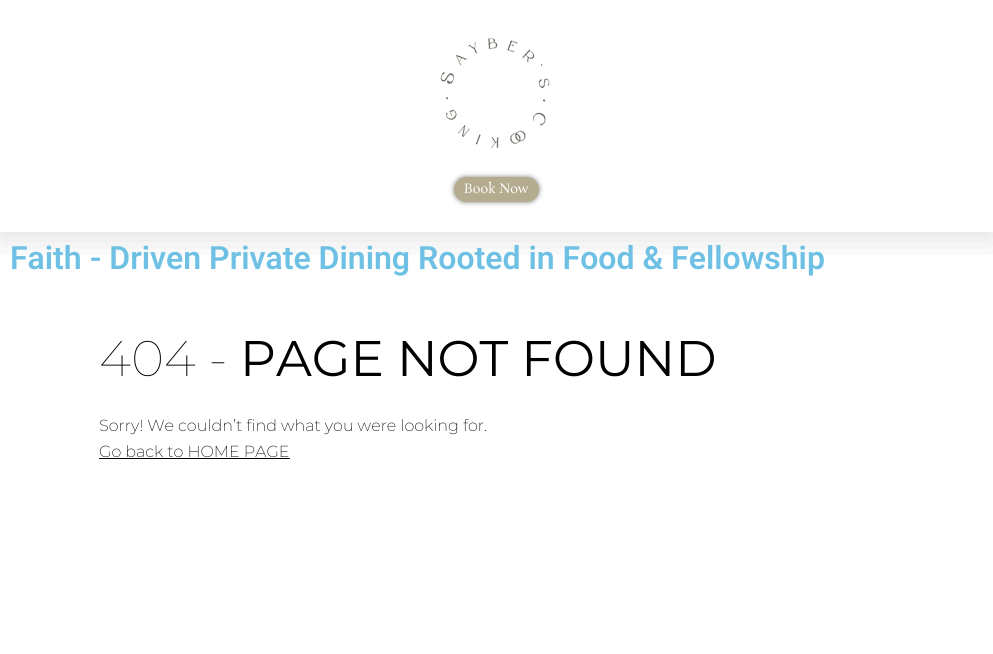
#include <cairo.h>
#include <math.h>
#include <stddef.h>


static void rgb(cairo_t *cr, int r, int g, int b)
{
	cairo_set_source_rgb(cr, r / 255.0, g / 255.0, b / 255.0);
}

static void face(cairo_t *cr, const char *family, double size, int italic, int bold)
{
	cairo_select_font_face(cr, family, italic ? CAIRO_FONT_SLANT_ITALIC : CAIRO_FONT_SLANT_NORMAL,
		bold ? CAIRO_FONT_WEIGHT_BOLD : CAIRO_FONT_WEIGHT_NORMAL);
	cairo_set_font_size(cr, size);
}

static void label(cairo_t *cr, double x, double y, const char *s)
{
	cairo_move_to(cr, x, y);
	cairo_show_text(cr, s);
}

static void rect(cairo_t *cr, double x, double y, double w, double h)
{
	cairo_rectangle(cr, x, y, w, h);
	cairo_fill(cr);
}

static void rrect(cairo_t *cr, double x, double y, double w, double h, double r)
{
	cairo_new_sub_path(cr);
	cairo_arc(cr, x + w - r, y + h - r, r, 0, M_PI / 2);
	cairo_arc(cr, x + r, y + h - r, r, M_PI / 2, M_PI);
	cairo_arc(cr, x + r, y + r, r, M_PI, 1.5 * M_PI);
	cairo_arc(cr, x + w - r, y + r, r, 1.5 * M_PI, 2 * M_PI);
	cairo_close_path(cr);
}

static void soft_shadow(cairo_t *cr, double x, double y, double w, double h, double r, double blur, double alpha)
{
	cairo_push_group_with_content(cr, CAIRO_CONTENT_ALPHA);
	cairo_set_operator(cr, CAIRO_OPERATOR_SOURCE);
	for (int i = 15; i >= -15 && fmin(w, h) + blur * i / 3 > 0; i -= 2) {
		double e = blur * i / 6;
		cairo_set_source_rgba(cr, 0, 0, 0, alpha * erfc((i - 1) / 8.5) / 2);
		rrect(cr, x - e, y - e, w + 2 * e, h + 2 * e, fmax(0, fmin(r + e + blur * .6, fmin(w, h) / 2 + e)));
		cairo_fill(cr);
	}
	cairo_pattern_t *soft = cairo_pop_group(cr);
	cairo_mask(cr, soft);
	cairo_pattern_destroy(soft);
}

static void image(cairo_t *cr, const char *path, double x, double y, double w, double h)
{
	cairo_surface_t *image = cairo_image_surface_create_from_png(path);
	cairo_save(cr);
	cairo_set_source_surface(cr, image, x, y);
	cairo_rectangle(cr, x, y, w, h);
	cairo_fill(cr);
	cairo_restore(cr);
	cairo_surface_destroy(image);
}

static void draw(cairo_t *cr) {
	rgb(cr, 255, 255, 255);
	cairo_paint(cr);
	cairo_save(cr);
	cairo_rectangle(cr, 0, 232, 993, 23);
	cairo_clip(cr);
	rgb(cr, 0, 0, 0);
	soft_shadow(cr, 0, 0, 993, 232, 0, 20, 0.16);
	cairo_restore(cr);
	image(cr, "image0.png", 440, 38, 110, 110);
	rgb(cr, 0, 0, 0);
	soft_shadow(cr, 454, 177, 85, 25, 12.5, 2.5, 0.5);
	rgb(cr, 181, 172, 143);
	rrect(cr, 454, 177, 85, 25, 12.5);
	cairo_fill(cr);
	face(cr, "Rosarivo", 13, 0, 0);
	rgb(cr, 255, 255, 255);
	label(cr, 464, 193, "Book Now");
	face(cr, "Roboto SemiBold", 32, 0, 0);
	rgb(cr, 110, 193, 228);
	label(cr, 10, 269, "Faith - Driven Private Dining Rooted in Food & Fellowship");
	face(cr, "Montserrat Thin", 50, 0, 0);
	rgb(cr, 0, 0, 0);
	label(cr, 99, 376, "404 -");
	face(cr, "Montserrat", 50, 0, 0);
	label(cr, 240, 376, "PAGE NOT FOUND");
	face(cr, "Montserrat ExtraLight", 16, 0, 0);
	label(cr, 99, 431, "Sorry! We couldn’t find what you were looking for.");
	label(cr, 99, 457, "Go back to HOME PAGE");
	rect(cr, 99, 458, 191, 1);
}

int main(void) {
	cairo_surface_t *surface = cairo_image_surface_create(CAIRO_FORMAT_RGB24, 993, 654);
	cairo_t *cr = cairo_create(surface);
	cairo_font_options_t *options = cairo_font_options_create();
	cairo_font_options_set_hint_metrics(options, CAIRO_HINT_METRICS_OFF);
	cairo_font_options_set_hint_style(options, CAIRO_HINT_STYLE_NONE);
	cairo_set_font_options(cr, options);
	cairo_set_miter_limit(cr, 4);
	draw(cr);
	cairo_surface_write_to_png(surface, "render.png");
	cairo_font_options_destroy(options);
	cairo_destroy(cr);
	cairo_surface_destroy(surface);
	return 0;
}
